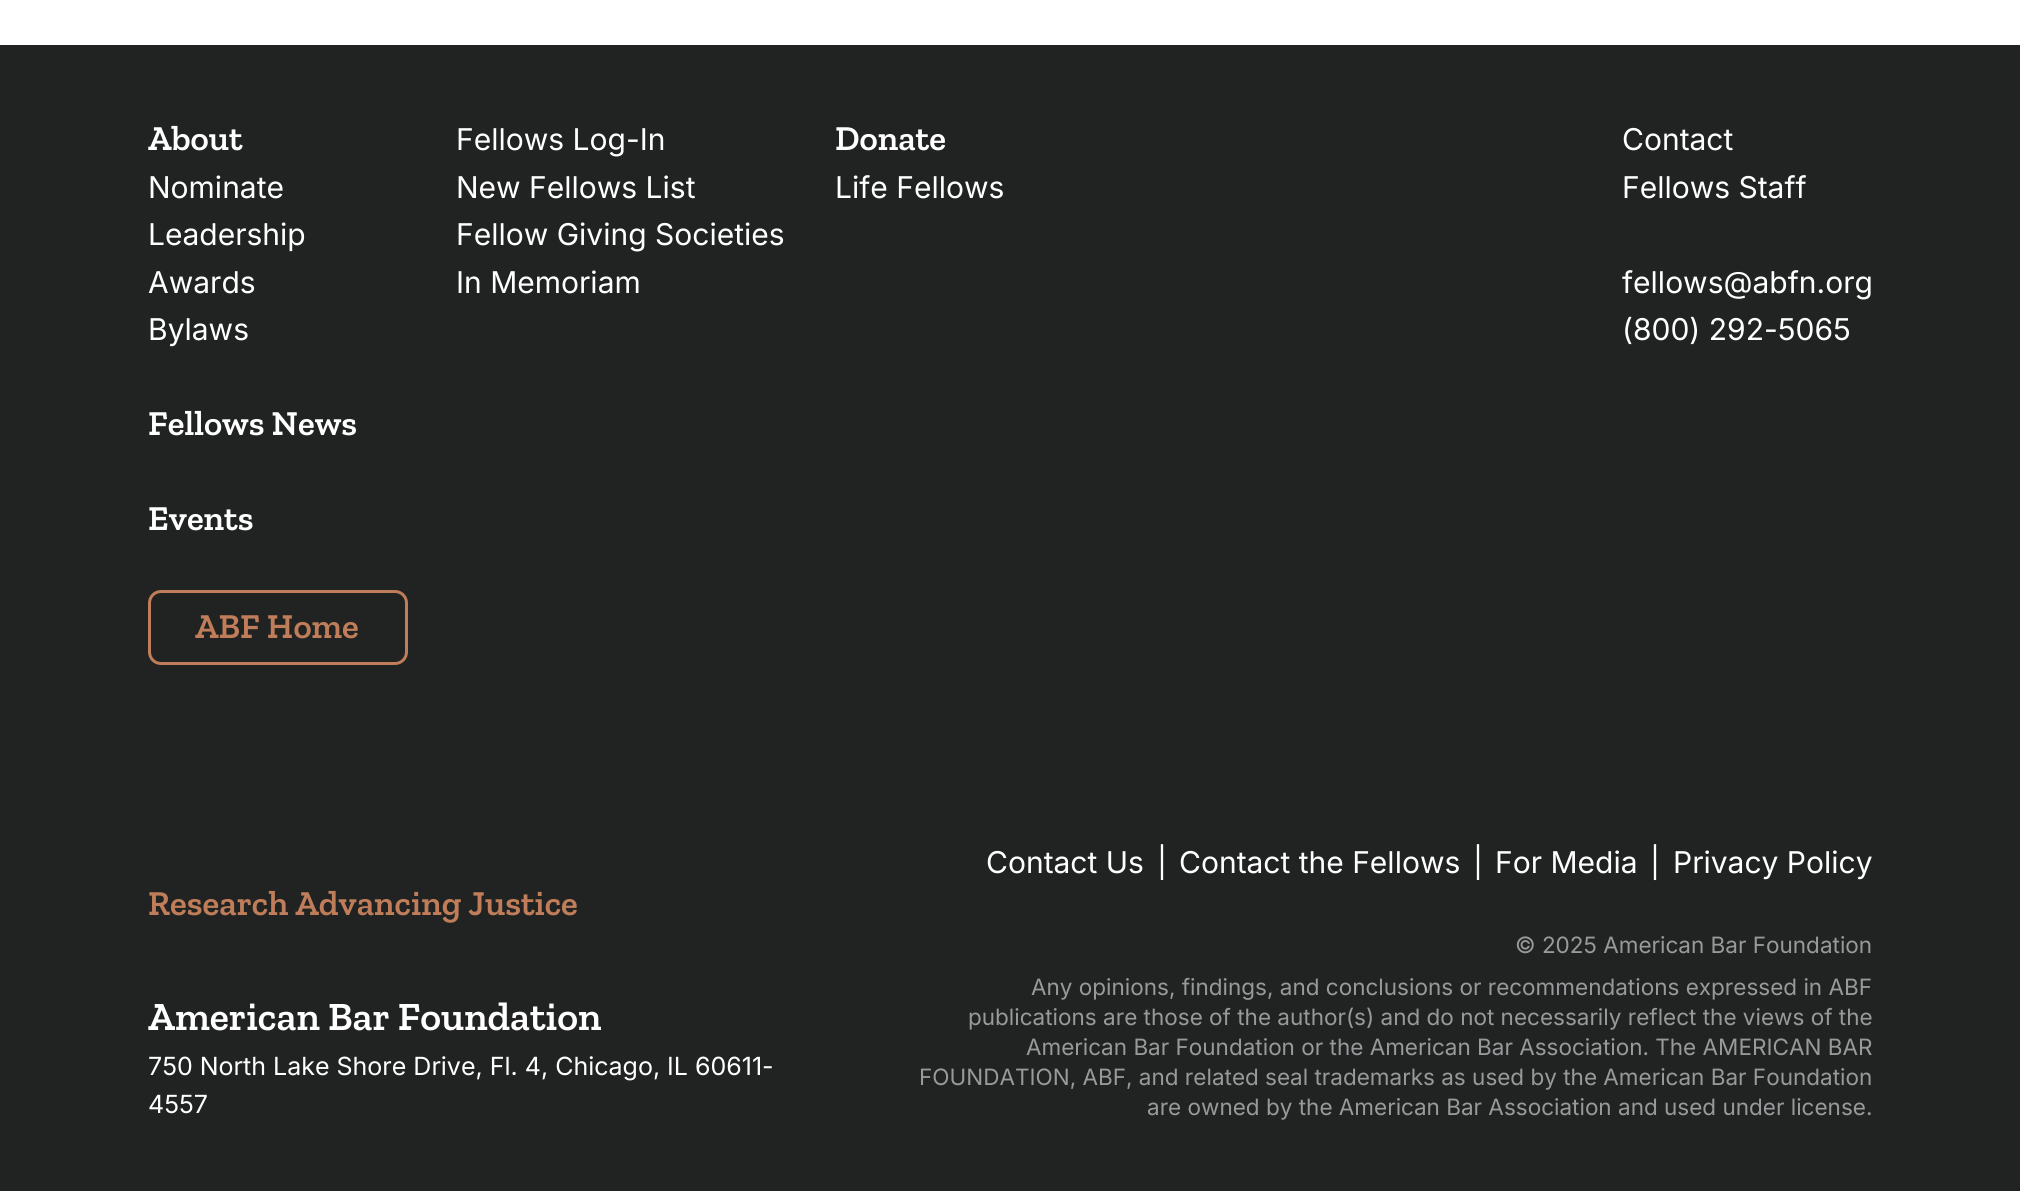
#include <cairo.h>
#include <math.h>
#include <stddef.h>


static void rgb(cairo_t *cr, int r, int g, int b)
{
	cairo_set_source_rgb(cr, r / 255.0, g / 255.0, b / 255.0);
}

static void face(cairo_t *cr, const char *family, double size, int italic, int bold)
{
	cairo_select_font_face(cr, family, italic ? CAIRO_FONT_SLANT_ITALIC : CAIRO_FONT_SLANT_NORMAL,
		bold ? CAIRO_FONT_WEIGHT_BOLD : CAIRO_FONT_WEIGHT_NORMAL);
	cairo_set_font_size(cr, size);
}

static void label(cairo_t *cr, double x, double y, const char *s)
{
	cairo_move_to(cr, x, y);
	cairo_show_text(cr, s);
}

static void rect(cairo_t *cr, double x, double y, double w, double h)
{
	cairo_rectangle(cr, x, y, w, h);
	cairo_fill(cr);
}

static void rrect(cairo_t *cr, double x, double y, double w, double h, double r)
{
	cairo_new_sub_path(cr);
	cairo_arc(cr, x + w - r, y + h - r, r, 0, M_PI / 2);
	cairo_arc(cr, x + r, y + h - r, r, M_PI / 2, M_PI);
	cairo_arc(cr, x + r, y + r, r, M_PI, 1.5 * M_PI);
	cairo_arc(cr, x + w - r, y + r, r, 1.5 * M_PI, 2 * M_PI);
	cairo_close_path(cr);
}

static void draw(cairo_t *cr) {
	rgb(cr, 255, 255, 255);
	cairo_paint(cr);
	rgb(cr, 33, 35, 34);
	rect(cr, 0, 45, 2020, 1146);
	face(cr, "Zilla Slab SemiBold", 35, 0, 0);
	rgb(cr, 255, 255, 255);
	label(cr, 148, 150, "About");
	face(cr, "Inter", 30, 0, 0);
	label(cr, 148, 198, "Nominate");
	label(cr, 148, 245, "Leadership");
	label(cr, 148, 293, "Awards");
	label(cr, 148, 340, "Bylaws");
	face(cr, "Zilla Slab SemiBold", 35, 0, 0);
	label(cr, 148, 435, "Fellows News");
	label(cr, 148, 530, "Events");
	rrect(cr, 149.5, 591.5, 257, 72, 11.5);
	rgb(cr, 192, 125, 89);
	cairo_set_line_width(cr, 3);
	cairo_stroke(cr);
	label(cr, 195, 638, "ABF Home");
	face(cr, "Inter", 30, 0, 0);
	rgb(cr, 255, 255, 255);
	label(cr, 456, 150, "Fellows Log-In");
	label(cr, 456, 198, "New Fellows List");
	label(cr, 456, 245, "Fellow Giving Societies");
	label(cr, 456, 293, "In Memoriam");
	face(cr, "Zilla Slab SemiBold", 35, 0, 0);
	label(cr, 835, 150, "Donate");
	face(cr, "Inter", 30, 0, 0);
	label(cr, 835, 198, "Life Fellows");
	label(cr, 1622, 150, "Contact");
	label(cr, 1622, 198, "Fellows Staff");
	label(cr, 1622, 293, "fellows@abfn.org");
	label(cr, 1622, 340, "(800) 292-5065");
	label(cr, 986, 873, "Contact Us");
	label(cr, 1157, 873, "|");
	label(cr, 1179, 873, "Contact the Fellows");
	label(cr, 1473, 873, "|");
	label(cr, 1495, 873, "For Media");
	label(cr, 1650, 873, "|");
	label(cr, 1673, 873, "Privacy Policy");
	face(cr, "Zilla Slab SemiBold", 35, 0, 0);
	rgb(cr, 192, 125, 89);
	label(cr, 148, 915, "Research Advancing Justice");
	face(cr, "Zilla Slab SemiBold", 40, 0, 0);
	rgb(cr, 255, 255, 255);
	label(cr, 148, 1030, "American Bar Foundation");
	face(cr, "Inter", 25, 0, 0);
	label(cr, 148, 1075, "750 North Lake Shore Drive, Fl. 4, Chicago, IL 60611-");
	label(cr, 148, 1113, "4557");
	face(cr, "Inter", 22.5, 0, 0);
	rgb(cr, 151, 153, 155);
	label(cr, 1515, 953, "© 2025 American Bar Foundation");
	label(cr, 1031, 995, "Any opinions, findings, and conclusions or recommendations expressed in ABF");
	label(cr, 968, 1025, "publications are those of the author(s) and do not necessarily reflect the views of the");
	label(cr, 1026, 1055, "American Bar Foundation or the American Bar Association. The AMERICAN BAR");
	label(cr, 919, 1085, "FOUNDATION, ABF, and related seal trademarks as used by the American Bar Foundation");
	label(cr, 1147, 1115, "are owned by the American Bar Association and used under license.");
}

int main(void) {
	cairo_surface_t *surface = cairo_image_surface_create(CAIRO_FORMAT_RGB24, 2020, 1191);
	cairo_t *cr = cairo_create(surface);
	cairo_font_options_t *options = cairo_font_options_create();
	cairo_font_options_set_hint_metrics(options, CAIRO_HINT_METRICS_OFF);
	cairo_font_options_set_hint_style(options, CAIRO_HINT_STYLE_NONE);
	cairo_set_font_options(cr, options);
	cairo_set_miter_limit(cr, 4);
	draw(cr);
	cairo_surface_write_to_png(surface, "render.png");
	cairo_font_options_destroy(options);
	cairo_destroy(cr);
	cairo_surface_destroy(surface);
	return 0;
}
